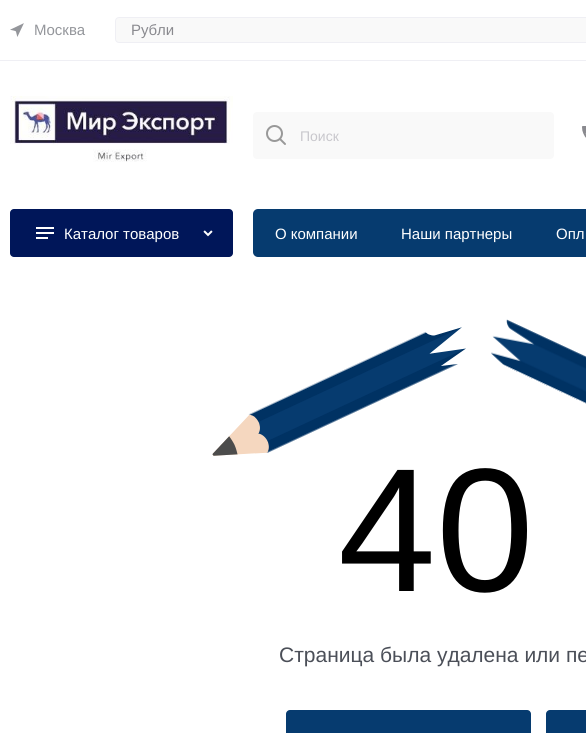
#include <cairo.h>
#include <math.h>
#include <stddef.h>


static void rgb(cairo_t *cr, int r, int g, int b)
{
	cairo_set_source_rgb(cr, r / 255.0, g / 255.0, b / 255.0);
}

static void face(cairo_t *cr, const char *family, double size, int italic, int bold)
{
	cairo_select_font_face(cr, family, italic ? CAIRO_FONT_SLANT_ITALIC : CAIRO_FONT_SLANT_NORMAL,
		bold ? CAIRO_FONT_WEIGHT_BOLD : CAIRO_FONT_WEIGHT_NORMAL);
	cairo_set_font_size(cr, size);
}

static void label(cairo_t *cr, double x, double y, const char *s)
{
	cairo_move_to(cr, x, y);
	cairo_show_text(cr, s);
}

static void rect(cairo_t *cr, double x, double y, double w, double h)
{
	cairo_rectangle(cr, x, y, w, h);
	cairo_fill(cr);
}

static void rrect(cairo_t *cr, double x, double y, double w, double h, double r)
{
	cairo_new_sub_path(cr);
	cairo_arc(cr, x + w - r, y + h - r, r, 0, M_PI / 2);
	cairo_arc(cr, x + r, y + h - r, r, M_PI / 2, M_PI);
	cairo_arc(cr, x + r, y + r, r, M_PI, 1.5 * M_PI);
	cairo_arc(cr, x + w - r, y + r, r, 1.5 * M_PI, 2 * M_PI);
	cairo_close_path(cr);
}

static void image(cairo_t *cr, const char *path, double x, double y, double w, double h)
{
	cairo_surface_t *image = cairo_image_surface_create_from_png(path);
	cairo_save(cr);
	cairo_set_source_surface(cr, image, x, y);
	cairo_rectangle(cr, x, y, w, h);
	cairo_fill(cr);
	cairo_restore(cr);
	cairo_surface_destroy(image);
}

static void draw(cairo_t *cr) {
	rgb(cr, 255, 255, 255);
	cairo_paint(cr);
	rgb(cr, 239, 239, 244);
	rect(cr, 0, 60, 586, 1);
	image(cr, "image0.png", 10, 23, 14, 14);
	face(cr, "Liberation Sans", 15, 0, 0);
	rgb(cr, 148, 150, 155);
	label(cr, 34, 35, "Москва");
	rgb(cr, 249, 249, 249);
	rrect(cr, 115.5, 17.5, 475, 25, 3.5);
	cairo_fill_preserve(cr);
	rgb(cr, 239, 239, 244);
	cairo_set_line_width(cr, 1);
	cairo_stroke(cr);
	rgb(cr, 138, 138, 143);
	label(cr, 131, 35, "Рубли");
	image(cr, "image1.png", 10, 96, 223, 66);
	rgb(cr, 249, 249, 249);
	rrect(cr, 253, 112, 301, 47, 4);
	cairo_fill(cr);
	image(cr, "image2.png", 266, 125, 20, 20);
	face(cr, "Liberation Sans", 14, 0, 0);
	rgb(cr, 200, 199, 204);
	label(cr, 300, 141, "Поиск");
	image(cr, "image3.png", 582, 126, 4, 12);
	rgb(cr, 0, 22, 89);
	rrect(cr, 10, 209, 223, 48, 4);
	cairo_fill(cr);
	image(cr, "image4.png", 36, 227, 18, 12);
	face(cr, "Liberation Sans", 15, 0, 0);
	rgb(cr, 255, 255, 255);
	label(cr, 64, 239, "Каталог товаров");
	image(cr, "image5.png", 203, 230, 10, 7);
	rgb(cr, 6, 59, 111);
	rrect(cr, 253, 209, 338, 48, 5);
	cairo_fill(cr);
	rgb(cr, 255, 255, 255);
	label(cr, 275, 239, "О компании");
	label(cr, 401, 239, "Наши партнеры");
	label(cr, 556, 239, "Опл");
	image(cr, "image6.png", 212, 319, 374, 137);
	face(cr, "Liberation Sans", 176, 0, 0);
	rgb(cr, 0, 0, 0);
	label(cr, 338, 591, "40");
	face(cr, "Liberation Sans", 21, 0, 0);
	rgb(cr, 75, 79, 88);
	label(cr, 279, 662, "Страница была удалена или пе");
	rgb(cr, 6, 59, 111);
	rrect(cr, 286, 710, 245, 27, 4);
	cairo_fill(cr);
	rrect(cr, 546, 710, 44, 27, 4);
	cairo_fill(cr);
}

int main(void) {
	cairo_surface_t *surface = cairo_image_surface_create(CAIRO_FORMAT_RGB24, 586, 733);
	cairo_t *cr = cairo_create(surface);
	cairo_font_options_t *options = cairo_font_options_create();
	cairo_font_options_set_hint_metrics(options, CAIRO_HINT_METRICS_OFF);
	cairo_font_options_set_hint_style(options, CAIRO_HINT_STYLE_NONE);
	cairo_set_font_options(cr, options);
	cairo_set_miter_limit(cr, 4);
	draw(cr);
	cairo_surface_write_to_png(surface, "render.png");
	cairo_font_options_destroy(options);
	cairo_destroy(cr);
	cairo_surface_destroy(surface);
	return 0;
}
